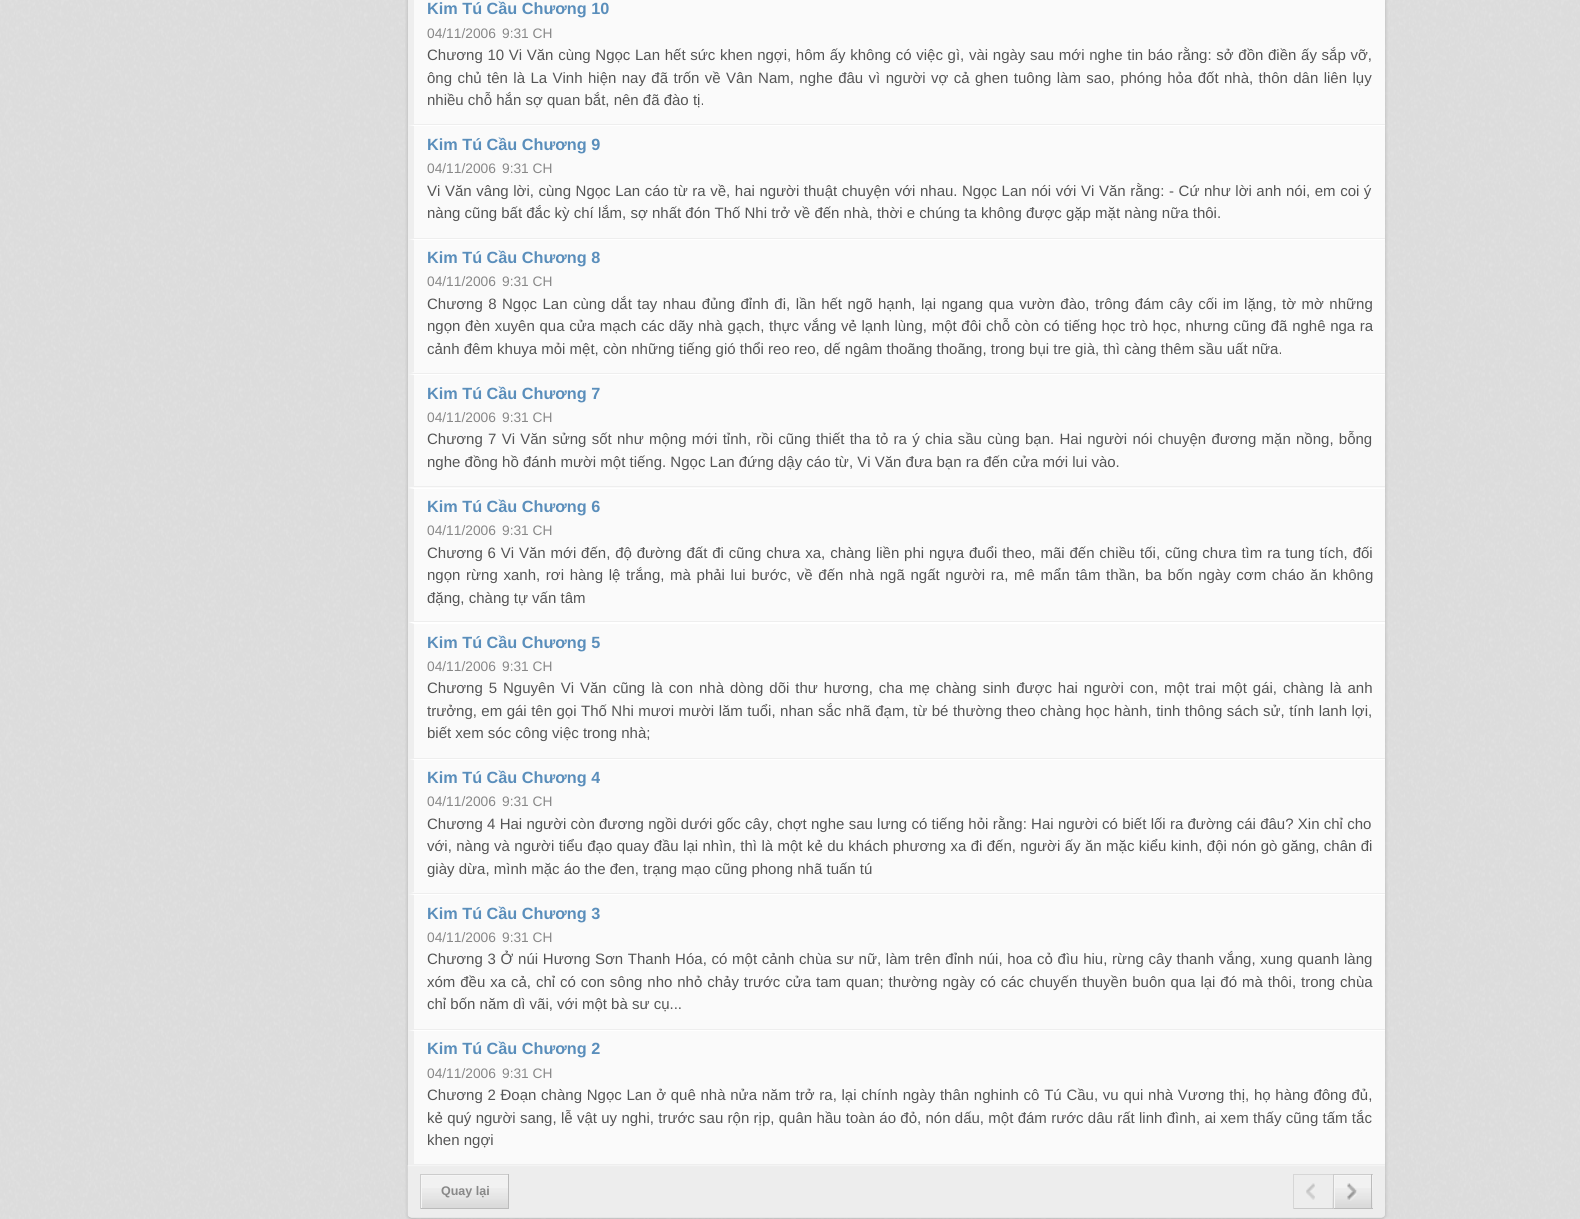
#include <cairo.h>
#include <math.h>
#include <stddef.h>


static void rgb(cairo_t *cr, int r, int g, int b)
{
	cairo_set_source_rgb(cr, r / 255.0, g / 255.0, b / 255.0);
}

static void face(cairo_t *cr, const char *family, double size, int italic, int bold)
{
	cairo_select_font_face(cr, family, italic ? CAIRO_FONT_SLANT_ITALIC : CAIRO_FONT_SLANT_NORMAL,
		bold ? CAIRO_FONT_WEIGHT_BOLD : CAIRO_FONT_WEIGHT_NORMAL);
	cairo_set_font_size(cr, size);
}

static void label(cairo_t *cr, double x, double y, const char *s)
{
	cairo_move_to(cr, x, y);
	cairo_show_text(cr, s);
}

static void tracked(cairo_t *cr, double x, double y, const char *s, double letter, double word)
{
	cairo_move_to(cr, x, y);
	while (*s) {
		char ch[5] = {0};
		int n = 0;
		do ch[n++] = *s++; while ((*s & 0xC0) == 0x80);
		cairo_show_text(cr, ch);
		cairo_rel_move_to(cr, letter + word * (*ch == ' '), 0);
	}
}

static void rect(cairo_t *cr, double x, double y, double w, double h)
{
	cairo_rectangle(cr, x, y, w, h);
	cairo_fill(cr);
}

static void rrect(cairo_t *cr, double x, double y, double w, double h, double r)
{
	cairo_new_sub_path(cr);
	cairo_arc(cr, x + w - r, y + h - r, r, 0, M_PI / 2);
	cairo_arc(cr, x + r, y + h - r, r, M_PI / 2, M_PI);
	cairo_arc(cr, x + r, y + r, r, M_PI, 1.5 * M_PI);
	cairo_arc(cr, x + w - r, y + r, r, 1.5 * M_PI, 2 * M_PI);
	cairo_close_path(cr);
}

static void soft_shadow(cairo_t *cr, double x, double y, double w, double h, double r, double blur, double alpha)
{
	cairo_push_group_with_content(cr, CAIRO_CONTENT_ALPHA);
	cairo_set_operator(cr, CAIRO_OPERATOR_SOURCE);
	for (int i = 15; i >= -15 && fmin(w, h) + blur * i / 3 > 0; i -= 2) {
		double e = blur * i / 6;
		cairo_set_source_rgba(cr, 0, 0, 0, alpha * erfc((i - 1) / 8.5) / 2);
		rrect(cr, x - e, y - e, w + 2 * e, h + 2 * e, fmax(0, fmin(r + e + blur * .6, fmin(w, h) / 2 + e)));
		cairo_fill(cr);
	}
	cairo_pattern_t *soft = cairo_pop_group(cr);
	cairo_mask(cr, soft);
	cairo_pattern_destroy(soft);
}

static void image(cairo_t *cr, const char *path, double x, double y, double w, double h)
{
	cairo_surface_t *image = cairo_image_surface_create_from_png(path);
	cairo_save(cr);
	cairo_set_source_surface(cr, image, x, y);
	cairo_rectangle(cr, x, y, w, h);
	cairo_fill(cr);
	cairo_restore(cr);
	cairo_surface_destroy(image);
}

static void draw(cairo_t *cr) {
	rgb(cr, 255, 255, 255);
	cairo_paint(cr);
	image(cr, "image0.png", 0, 901, 1580, 318);
	image(cr, "image1.png", 0, 0, 1580, 901);
	rgb(cr, 0, 0, 0);
	soft_shadow(cr, 408, -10, 977, 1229, 4, 2, 0.2);
	rgb(cr, 250, 250, 250);
	rect(cr, 408, 0, 977, 1164);
	rgb(cr, 238, 238, 238);
	rect(cr, 408, 124, 977, 1);
	cairo_new_path(cr);
	cairo_move_to(cr, 408, 125);
	cairo_line_to(cr, 408, -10);
	cairo_line_to(cr, 414, -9);
	cairo_line_to(cr, 414, 124);
	cairo_close_path(cr);
	cairo_fill(cr);
	face(cr, "Liberation Sans", 16.25, 0, 1);
	rgb(cr, 90, 142, 187);
	label(cr, 427, 14, "Kim Tú Cầu Chương 10");
	face(cr, "Liberation Sans", 13.75, 0, 0);
	rgb(cr, 136, 136, 136);
	label(cr, 427, 38, "04/11/2006");
	label(cr, 502, 38, "9:31 CH");
	face(cr, "Liberation Sans", 15, 0, 0);
	rgb(cr, 85, 85, 85);
	tracked(cr, 427, 60, "Chương 10 Vi Văn cùng Ngọc Lan hết sức khen ngợi, hôm ấy không có việc gì, vài ngày sau mới nghe tin báo rằng: sở đồn điền ấy sắp vỡ,", 0, 0.5);
	tracked(cr, 427, 83, "ông chủ tên là La Vinh hiện nay đã trốn về Vân Nam, nghe đâu vì người vợ cả ghen tuông làm sao, phóng hỏa đốt nhà, thôn dân liên lụy", 0, 1.25);
	label(cr, 427, 105, "nhiều chỗ hắn sợ quan bắt, nên đã đào tị.");
	rgb(cr, 255, 255, 255);
	cairo_new_path(cr);
	cairo_move_to(cr, 408, 125);
	cairo_line_to(cr, 1385, 125);
	cairo_line_to(cr, 1385, 126);
	cairo_line_to(cr, 414, 126);
	cairo_close_path(cr);
	cairo_fill(cr);
	rgb(cr, 238, 238, 238);
	rect(cr, 408, 238, 977, 1);
	cairo_new_path(cr);
	cairo_move_to(cr, 408, 239);
	cairo_line_to(cr, 408, 125);
	cairo_line_to(cr, 414, 126);
	cairo_line_to(cr, 414, 238);
	cairo_close_path(cr);
	cairo_fill(cr);
	face(cr, "Liberation Sans", 16.25, 0, 1);
	rgb(cr, 90, 142, 187);
	label(cr, 427, 150, "Kim Tú Cầu Chương 9");
	face(cr, "Liberation Sans", 13.75, 0, 0);
	rgb(cr, 136, 136, 136);
	label(cr, 427, 173, "04/11/2006");
	label(cr, 502, 173, "9:31 CH");
	face(cr, "Liberation Sans", 15, 0, 0);
	rgb(cr, 85, 85, 85);
	tracked(cr, 427, 196, "Vi Văn vâng lời, cùng Ngọc Lan cáo từ ra về, hai người thuật chuyện với nhau.", 0, 0.4);
	tracked(cr, 962, 196, "Ngọc Lan nói với Vi Văn rằng:", 0, 0.4);
	tracked(cr, 1169, 196, "- Cứ như lời anh nói, em coi ý", 0, 0.4);
	label(cr, 427, 218, "nàng cũng bất đắc kỳ chí lắm, sợ nhất đón Thố Nhi trở về đến nhà, thời e chúng ta không được gặp mặt nàng nữa thôi.");
	rgb(cr, 255, 255, 255);
	cairo_new_path(cr);
	cairo_move_to(cr, 408, 239);
	cairo_line_to(cr, 1385, 239);
	cairo_line_to(cr, 1385, 240);
	cairo_line_to(cr, 414, 240);
	cairo_close_path(cr);
	cairo_fill(cr);
	rgb(cr, 238, 238, 238);
	rect(cr, 408, 373, 977, 1);
	cairo_new_path(cr);
	cairo_move_to(cr, 408, 374);
	cairo_line_to(cr, 408, 239);
	cairo_line_to(cr, 414, 240);
	cairo_line_to(cr, 414, 372);
	cairo_close_path(cr);
	cairo_fill(cr);
	face(cr, "Liberation Sans", 16.25, 0, 1);
	rgb(cr, 90, 142, 187);
	label(cr, 427, 263, "Kim Tú Cầu Chương 8");
	face(cr, "Liberation Sans", 13.75, 0, 0);
	rgb(cr, 136, 136, 136);
	label(cr, 427, 286, "04/11/2006");
	label(cr, 502, 286, "9:31 CH");
	face(cr, "Liberation Sans", 15, 0, 0);
	rgb(cr, 85, 85, 85);
	tracked(cr, 427, 309, "Chương 8 Ngọc Lan cùng dắt tay nhau đủng đỉnh đi, lần hết ngõ hạnh, lại ngang qua vườn đào, trông đám cây cối im lặng, tờ mờ những", 0, 1.3);
	tracked(cr, 427, 331, "ngọn đèn xuyên qua cửa mạch các dãy nhà gạch, thực vắng vẻ lạnh lùng, một đôi chỗ còn có tiếng học trò học, nhưng cũng đã nghê nga ra", 0, 0.5);
	label(cr, 427, 354, "cảnh đêm khuya mỏi mệt, còn những tiếng gió thổi reo reo, dế ngâm thoãng thoãng, trong bụi tre già, thì càng thêm sầu uất nữa.");
	rgb(cr, 255, 255, 255);
	cairo_new_path(cr);
	cairo_move_to(cr, 408, 374);
	cairo_line_to(cr, 1385, 374);
	cairo_line_to(cr, 1385, 375);
	cairo_line_to(cr, 414, 375);
	cairo_close_path(cr);
	cairo_fill(cr);
	rgb(cr, 238, 238, 238);
	rect(cr, 408, 486, 977, 1);
	cairo_new_path(cr);
	cairo_move_to(cr, 408, 488);
	cairo_line_to(cr, 408, 374);
	cairo_line_to(cr, 414, 375);
	cairo_line_to(cr, 414, 486);
	cairo_close_path(cr);
	cairo_fill(cr);
	face(cr, "Liberation Sans", 16.25, 0, 1);
	rgb(cr, 90, 142, 187);
	label(cr, 427, 399, "Kim Tú Cầu Chương 7");
	face(cr, "Liberation Sans", 13.75, 0, 0);
	rgb(cr, 136, 136, 136);
	label(cr, 427, 422, "04/11/2006");
	label(cr, 502, 422, "9:31 CH");
	face(cr, "Liberation Sans", 15, 0, 0);
	rgb(cr, 85, 85, 85);
	tracked(cr, 427, 444, "Chương 7 Vi Văn sửng sốt như mộng mới tỉnh, rồi cũng thiết tha tỏ ra ý chia sầu cùng bạn. Hai người nói chuyện đương mặn nồng, bỗng", 0, 1.1);
	label(cr, 427, 467, "nghe đồng hồ đánh mười một tiếng. Ngọc Lan đứng dậy cáo từ, Vi Văn đưa bạn ra đến cửa mới lui vào.");
	rgb(cr, 255, 255, 255);
	cairo_new_path(cr);
	cairo_move_to(cr, 408, 488);
	cairo_line_to(cr, 1385, 488);
	cairo_line_to(cr, 1385, 489);
	cairo_line_to(cr, 414, 489);
	cairo_close_path(cr);
	cairo_fill(cr);
	rgb(cr, 238, 238, 238);
	rect(cr, 408, 621, 977, 1);
	cairo_new_path(cr);
	cairo_move_to(cr, 408, 622);
	cairo_line_to(cr, 408, 488);
	cairo_line_to(cr, 414, 489);
	cairo_line_to(cr, 414, 621);
	cairo_close_path(cr);
	cairo_fill(cr);
	face(cr, "Liberation Sans", 16.25, 0, 1);
	rgb(cr, 90, 142, 187);
	label(cr, 427, 512, "Kim Tú Cầu Chương 6");
	face(cr, "Liberation Sans", 13.75, 0, 0);
	rgb(cr, 136, 136, 136);
	label(cr, 427, 535, "04/11/2006");
	label(cr, 502, 535, "9:31 CH");
	face(cr, "Liberation Sans", 15, 0, 0);
	rgb(cr, 85, 85, 85);
	tracked(cr, 427, 558, "Chương 6 Vi Văn mới đến, độ đường đất đi cũng chưa xa, chàng liền phi ngựa đuổi theo, mãi đến chiều tối, cũng chưa tìm ra tung tích, đối", 0, 0.7);
	tracked(cr, 427, 580, "ngọn rừng xanh, rơi hàng lệ trắng, mà phải lui bước, về đến nhà ngã ngất người ra, mê mẩn tâm thần, ba bốn ngày cơm cháo ăn không", 0, 1.5);
	label(cr, 427, 603, "đặng, chàng tự vấn tâm");
	rgb(cr, 255, 255, 255);
	cairo_new_path(cr);
	cairo_move_to(cr, 408, 622);
	cairo_line_to(cr, 1385, 622);
	cairo_line_to(cr, 1385, 624);
	cairo_line_to(cr, 414, 624);
	cairo_close_path(cr);
	cairo_fill(cr);
	rgb(cr, 238, 238, 238);
	rect(cr, 408, 758, 977, 1);
	cairo_new_path(cr);
	cairo_move_to(cr, 408, 759);
	cairo_line_to(cr, 408, 622);
	cairo_line_to(cr, 414, 624);
	cairo_line_to(cr, 414, 758);
	cairo_close_path(cr);
	cairo_fill(cr);
	face(cr, "Liberation Sans", 16.25, 0, 1);
	rgb(cr, 90, 142, 187);
	label(cr, 427, 648, "Kim Tú Cầu Chương 5");
	face(cr, "Liberation Sans", 13.75, 0, 0);
	rgb(cr, 136, 136, 136);
	label(cr, 427, 671, "04/11/2006");
	label(cr, 502, 671, "9:31 CH");
	face(cr, "Liberation Sans", 15, 0, 0);
	rgb(cr, 85, 85, 85);
	tracked(cr, 427, 693, "Chương 5 Nguyên Vi Văn cũng là con nhà dòng dõi thư hương, cha mẹ chàng sinh được hai người con, một trai một gái, chàng là anh", 0, 1.8);
	tracked(cr, 427, 716, "trưởng, em gái tên gọi Thố Nhi mươi mười lăm tuổi, nhan sắc nhã đạm, từ bé thường theo chàng học hành, tinh thông sách sử, tính lanh lợi,", 0, 0.3);
	label(cr, 427, 738, "biết xem sóc công việc trong nhà;");
	rgb(cr, 255, 255, 255);
	cairo_new_path(cr);
	cairo_move_to(cr, 408, 759);
	cairo_line_to(cr, 1385, 759);
	cairo_line_to(cr, 1385, 760);
	cairo_line_to(cr, 414, 760);
	cairo_close_path(cr);
	cairo_fill(cr);
	rgb(cr, 238, 238, 238);
	rect(cr, 408, 893, 977, 1);
	cairo_new_path(cr);
	cairo_move_to(cr, 408, 894);
	cairo_line_to(cr, 408, 759);
	cairo_line_to(cr, 414, 760);
	cairo_line_to(cr, 414, 892);
	cairo_close_path(cr);
	cairo_fill(cr);
	face(cr, "Liberation Sans", 16.25, 0, 1);
	rgb(cr, 90, 142, 187);
	label(cr, 427, 783, "Kim Tú Cầu Chương 4");
	face(cr, "Liberation Sans", 13.75, 0, 0);
	rgb(cr, 136, 136, 136);
	label(cr, 427, 806, "04/11/2006");
	label(cr, 502, 806, "9:31 CH");
	face(cr, "Liberation Sans", 15, 0, 0);
	rgb(cr, 85, 85, 85);
	tracked(cr, 427, 829, "Chương 4 Hai người còn đương ngồi dưới gốc cây, chợt nghe sau lưng có tiếng hỏi rằng: Hai người có biết lối ra đường cái đâu? Xin chỉ cho", 0, 0.1);
	tracked(cr, 427, 851, "với, nàng và người tiểu đạo quay đầu lại nhìn, thì là một kẻ du khách phương xa đi đến, người ấy ăn mặc kiểu kinh, đội nón gò găng, chân đi", 0, 0.25);
	label(cr, 427, 874, "giày dừa, mình mặc áo the đen, trạng mạo cũng phong nhã tuấn tú");
	rgb(cr, 255, 255, 255);
	cairo_new_path(cr);
	cairo_move_to(cr, 408, 894);
	cairo_line_to(cr, 1385, 894);
	cairo_line_to(cr, 1385, 895);
	cairo_line_to(cr, 414, 895);
	cairo_close_path(cr);
	cairo_fill(cr);
	rgb(cr, 238, 238, 238);
	rect(cr, 408, 1029, 977, 1);
	cairo_new_path(cr);
	cairo_move_to(cr, 408, 1030);
	cairo_line_to(cr, 408, 894);
	cairo_line_to(cr, 414, 895);
	cairo_line_to(cr, 414, 1029);
	cairo_close_path(cr);
	cairo_fill(cr);
	face(cr, "Liberation Sans", 16.25, 0, 1);
	rgb(cr, 90, 142, 187);
	label(cr, 427, 919, "Kim Tú Cầu Chương 3");
	face(cr, "Liberation Sans", 13.75, 0, 0);
	rgb(cr, 136, 136, 136);
	label(cr, 427, 942, "04/11/2006");
	label(cr, 502, 942, "9:31 CH");
	face(cr, "Liberation Sans", 15, 0, 0);
	rgb(cr, 85, 85, 85);
	tracked(cr, 427, 964, "Chương 3 Ở núi Hương Sơn Thanh Hóa, có một cảnh chùa sư nữ, làm trên đỉnh núi, hoa cỏ đìu hiu, rừng cây thanh vắng, xung quanh làng", 0, 0.55);
	tracked(cr, 427, 987, "xóm đều xa cả, chỉ có con sông nho nhỏ chảy trước cửa tam quan; thường ngày có các chuyến thuyền buôn qua lại đó mà thôi, trong chùa", 0, 0.75);
	label(cr, 427, 1009, "chỉ bốn năm dì vãi, với một bà sư cụ...");
	rgb(cr, 255, 255, 255);
	cairo_new_path(cr);
	cairo_move_to(cr, 408, 1030);
	cairo_line_to(cr, 1385, 1030);
	cairo_line_to(cr, 1385, 1031);
	cairo_line_to(cr, 414, 1031);
	cairo_close_path(cr);
	cairo_fill(cr);
	rgb(cr, 238, 238, 238);
	rect(cr, 408, 1164, 977, 1);
	cairo_new_path(cr);
	cairo_move_to(cr, 408, 1165);
	cairo_line_to(cr, 408, 1030);
	cairo_line_to(cr, 414, 1031);
	cairo_line_to(cr, 414, 1164);
	cairo_close_path(cr);
	cairo_fill(cr);
	face(cr, "Liberation Sans", 16.25, 0, 1);
	rgb(cr, 90, 142, 187);
	label(cr, 427, 1054, "Kim Tú Cầu Chương 2");
	face(cr, "Liberation Sans", 13.75, 0, 0);
	rgb(cr, 136, 136, 136);
	label(cr, 427, 1078, "04/11/2006");
	label(cr, 502, 1078, "9:31 CH");
	face(cr, "Liberation Sans", 15, 0, 0);
	rgb(cr, 85, 85, 85);
	tracked(cr, 427, 1100, "Chương 2 Đoạn chàng Ngọc Lan ở quê nhà nửa năm trở ra, lại chính ngày thân nghinh cô Tú Cầu, vu qui nhà Vương thị, họ hàng đông đủ,", 0, 0.55);
	tracked(cr, 427, 1123, "kẻ quý người sang, lễ vật uy nghi, trước sau rộn rịp, quân hầu toàn áo đỏ, nón dấu, một đám rước dâu rất linh đình, ai xem thấy cũng tấm tắc", 0, 0.15);
	label(cr, 427, 1145, "khen ngợi");
	rgb(cr, 229, 229, 229);
	cairo_new_path(cr);
	cairo_move_to(cr, 408, 1165);
	cairo_line_to(cr, 1385, 1165);
	cairo_line_to(cr, 1385, 1214);
	cairo_curve_to(cr, 1385, 1216, 1383, 1218, 1381, 1218);
	cairo_line_to(cr, 412, 1218);
	cairo_curve_to(cr, 410, 1218, 408, 1216, 408, 1214);
	cairo_close_path(cr);
	cairo_fill(cr);
	image(cr, "image2.png", 407, 1165, 978, 52);
	rgb(cr, 241, 241, 241);
	rect(cr, 422, 1176, 86, 32);
	image(cr, "image3.png", 422, 1188, 86, 20);
	cairo_save(cr);
	cairo_rectangle(cr, 421, 1175, 87, 33);
	cairo_clip(cr);
	rgb(cr, 245, 245, 245);
	cairo_set_fill_rule(cr, CAIRO_FILL_RULE_EVEN_ODD);
	cairo_new_path(cr);
	cairo_move_to(cr, 298, 1051);
	cairo_line_to(cr, 631, 1051);
	cairo_line_to(cr, 631, 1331);
	cairo_line_to(cr, 298, 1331);
	cairo_close_path(cr);
	cairo_move_to(cr, 422, 1176);
	cairo_line_to(cr, 509, 1176);
	cairo_line_to(cr, 509, 1209);
	cairo_line_to(cr, 422, 1209);
	cairo_close_path(cr);
	cairo_fill(cr);
	cairo_restore(cr);
	rgb(cr, 204, 204, 204);
	rect(cr, 420, 1174, 89, 1);
	rgb(cr, 187, 187, 187);
	rect(cr, 508, 1174, 1, 35);
	rect(cr, 420, 1208, 89, 1);
	rgb(cr, 204, 204, 204);
	rect(cr, 420, 1174, 1, 35);
	face(cr, "Liberation Sans", 12.5, 0, 1);
	rgb(cr, 136, 136, 136);
	label(cr, 441, 1195, "Quay lại");
	rgb(cr, 214, 214, 214);
	rect(cr, 1293, 1174, 40, 1);
	rgb(cr, 202, 202, 202);
	rect(cr, 1293, 1208, 40, 1);
	rgb(cr, 214, 214, 214);
	rect(cr, 1293, 1174, 1, 35);
	image(cr, "image4.png", 1306, 1183, 9, 17);
	rgb(cr, 241, 241, 241);
	rect(cr, 1335, 1175, 38, 33);
	image(cr, "image5.png", 1332, 1188, 41, 21);
	cairo_save(cr);
	cairo_rectangle(cr, 1334, 1175, 37, 33);
	cairo_clip(cr);
	rgb(cr, 245, 245, 245);
	cairo_set_fill_rule(cr, CAIRO_FILL_RULE_EVEN_ODD);
	cairo_new_path(cr);
	cairo_move_to(cr, 1210, 1051);
	cairo_line_to(cr, 1495, 1051);
	cairo_line_to(cr, 1495, 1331);
	cairo_line_to(cr, 1210, 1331);
	cairo_close_path(cr);
	cairo_move_to(cr, 1335, 1176);
	cairo_line_to(cr, 1372, 1176);
	cairo_line_to(cr, 1372, 1209);
	cairo_line_to(cr, 1335, 1209);
	cairo_close_path(cr);
	cairo_fill(cr);
	cairo_restore(cr);
	rgb(cr, 204, 204, 204);
	rect(cr, 1333, 1174, 40, 1);
	rgb(cr, 187, 187, 187);
	rect(cr, 1371, 1174, 1, 35);
	rect(cr, 1333, 1208, 40, 1);
	rgb(cr, 204, 204, 204);
	rect(cr, 1333, 1174, 1, 35);
	image(cr, "image6.png", 1347, 1183, 10, 18);
}

int main(void) {
	cairo_surface_t *surface = cairo_image_surface_create(CAIRO_FORMAT_RGB24, 1580, 1219);
	cairo_t *cr = cairo_create(surface);
	cairo_font_options_t *options = cairo_font_options_create();
	cairo_font_options_set_hint_metrics(options, CAIRO_HINT_METRICS_OFF);
	cairo_font_options_set_hint_style(options, CAIRO_HINT_STYLE_NONE);
	cairo_set_font_options(cr, options);
	cairo_set_miter_limit(cr, 4);
	draw(cr);
	cairo_surface_write_to_png(surface, "render.png");
	cairo_font_options_destroy(options);
	cairo_destroy(cr);
	cairo_surface_destroy(surface);
	return 0;
}
